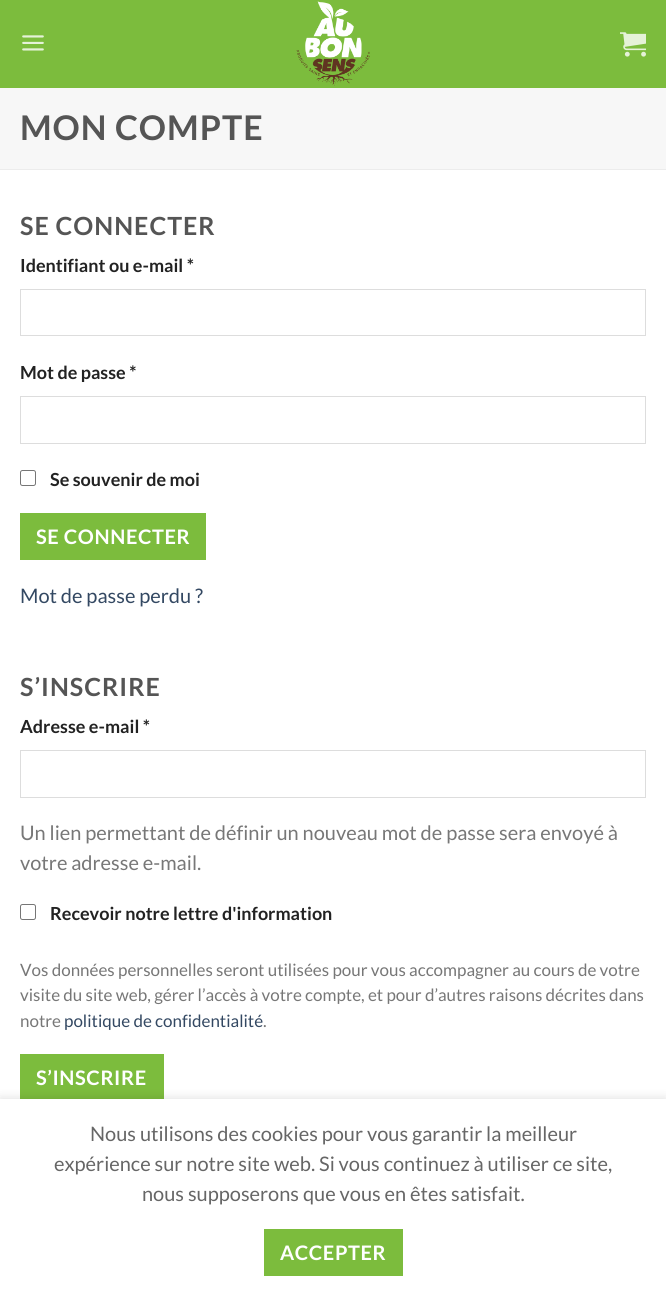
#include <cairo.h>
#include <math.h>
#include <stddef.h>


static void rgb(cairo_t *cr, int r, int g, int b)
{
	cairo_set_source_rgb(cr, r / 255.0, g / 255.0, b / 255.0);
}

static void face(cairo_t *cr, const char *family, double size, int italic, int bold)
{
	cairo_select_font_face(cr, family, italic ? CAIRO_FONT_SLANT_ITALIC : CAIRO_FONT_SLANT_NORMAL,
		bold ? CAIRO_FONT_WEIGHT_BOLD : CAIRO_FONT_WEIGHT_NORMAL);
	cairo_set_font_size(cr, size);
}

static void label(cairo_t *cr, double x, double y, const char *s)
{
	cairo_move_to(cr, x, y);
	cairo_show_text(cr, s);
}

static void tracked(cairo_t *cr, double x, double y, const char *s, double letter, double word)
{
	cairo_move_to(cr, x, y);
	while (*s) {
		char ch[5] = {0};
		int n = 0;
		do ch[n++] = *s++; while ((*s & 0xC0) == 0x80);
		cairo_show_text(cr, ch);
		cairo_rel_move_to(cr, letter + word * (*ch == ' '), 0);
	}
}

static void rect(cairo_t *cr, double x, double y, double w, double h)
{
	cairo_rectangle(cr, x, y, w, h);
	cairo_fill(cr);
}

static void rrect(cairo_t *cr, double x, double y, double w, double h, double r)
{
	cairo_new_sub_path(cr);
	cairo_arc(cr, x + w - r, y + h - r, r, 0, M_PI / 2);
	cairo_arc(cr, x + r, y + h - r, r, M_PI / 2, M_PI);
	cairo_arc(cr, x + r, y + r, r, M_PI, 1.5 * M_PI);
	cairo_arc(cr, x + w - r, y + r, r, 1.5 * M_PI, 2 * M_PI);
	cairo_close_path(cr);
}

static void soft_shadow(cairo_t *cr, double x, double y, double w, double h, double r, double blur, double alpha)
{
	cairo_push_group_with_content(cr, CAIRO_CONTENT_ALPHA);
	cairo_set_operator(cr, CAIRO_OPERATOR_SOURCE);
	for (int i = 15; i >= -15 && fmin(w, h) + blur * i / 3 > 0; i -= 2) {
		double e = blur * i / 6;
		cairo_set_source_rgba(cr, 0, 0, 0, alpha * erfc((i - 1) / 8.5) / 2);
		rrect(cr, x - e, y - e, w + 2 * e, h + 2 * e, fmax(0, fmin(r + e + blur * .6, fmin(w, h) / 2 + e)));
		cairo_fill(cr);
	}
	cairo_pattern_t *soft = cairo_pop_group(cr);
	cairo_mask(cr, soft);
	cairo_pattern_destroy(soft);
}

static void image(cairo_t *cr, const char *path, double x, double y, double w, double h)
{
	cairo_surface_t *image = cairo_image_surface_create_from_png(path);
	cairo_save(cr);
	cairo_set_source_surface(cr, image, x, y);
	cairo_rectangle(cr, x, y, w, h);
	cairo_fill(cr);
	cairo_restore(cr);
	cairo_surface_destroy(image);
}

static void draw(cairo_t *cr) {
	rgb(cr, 255, 255, 255);
	cairo_paint(cr);
	rgb(cr, 124, 188, 61);
	rect(cr, 0, 0, 666, 88);
	image(cr, "image0.png", 22, 35, 22, 16);
	image(cr, "image1.png", 296, 1, 74, 85);
	image(cr, "image2.png", 620, 32, 26, 25);
	rgb(cr, 247, 247, 247);
	rect(cr, 0, 88, 666, 81);
	rgb(cr, 236, 236, 236);
	rect(cr, 0, 169, 666, 1);
	face(cr, "Lato", 34, 0, 1);
	rgb(cr, 85, 85, 85);
	tracked(cr, 20, 140, "MON COMPTE", 1, 0);
	face(cr, "Lato", 25, 0, 1);
	tracked(cr, 20, 235, "SE CONNECTER", 1, 0);
	face(cr, "Lato", 18, 0, 1);
	rgb(cr, 34, 34, 34);
	label(cr, 20, 272, "Identifiant ou e-mail *");
	cairo_rectangle(cr, 20.5, 289.5, 625, 46);
	rgb(cr, 221, 221, 221);
	cairo_set_line_width(cr, 1);
	cairo_stroke(cr);
	rgb(cr, 34, 34, 34);
	label(cr, 20, 379, "Mot de passe *");
	cairo_rectangle(cr, 20.5, 396.5, 625, 47);
	rgb(cr, 221, 221, 221);
	cairo_stroke(cr);
	rrect(cr, 20.5, 470.5, 15, 15, 2);
	rgb(cr, 118, 118, 118);
	cairo_stroke(cr);
	rgb(cr, 34, 34, 34);
	label(cr, 50, 486, "Se souvenir de moi");
	rgb(cr, 124, 188, 61);
	rect(cr, 20, 513, 186, 47);
	face(cr, "Lato", 20, 0, 1);
	rgb(cr, 255, 255, 255);
	tracked(cr, 36, 544, "SE CONNECTER", 0.6, 0);
	face(cr, "Lato", 20, 0, 0);
	rgb(cr, 51, 72, 98);
	label(cr, 20, 603, "Mot de passe perdu ?");
	face(cr, "Lato", 25, 0, 1);
	rgb(cr, 85, 85, 85);
	tracked(cr, 20, 696, "S’INSCRIRE", 1, 0);
	face(cr, "Lato", 18, 0, 1);
	rgb(cr, 34, 34, 34);
	label(cr, 20, 733, "Adresse e-mail *");
	cairo_rectangle(cr, 20.5, 750.5, 625, 47);
	rgb(cr, 221, 221, 221);
	cairo_stroke(cr);
	face(cr, "Lato", 20, 0, 0);
	rgb(cr, 119, 119, 119);
	label(cr, 20, 840, "Un lien permettant de définir un nouveau mot de passe sera envoyé à");
	label(cr, 20, 870, "votre adresse e-mail.");
	rrect(cr, 20.5, 904.5, 15, 15, 2);
	rgb(cr, 118, 118, 118);
	cairo_stroke(cr);
	face(cr, "Lato", 18, 0, 1);
	rgb(cr, 34, 34, 34);
	label(cr, 50, 920, "Recevoir notre lettre d'information");
	face(cr, "Lato", 17, 0, 0);
	rgb(cr, 119, 119, 119);
	label(cr, 20, 976, "Vos données personnelles seront utilisées pour vous accompagner au cours de votre");
	label(cr, 20, 1001, "visite du site web, gérer l’accès à votre compte, et pour d’autres raisons décrites dans");
	label(cr, 20, 1027, "notre");
	rgb(cr, 51, 72, 98);
	label(cr, 64, 1027, "politique de confidentialité");
	rgb(cr, 119, 119, 119);
	label(cr, 263, 1027, ".");
	rgb(cr, 124, 188, 61);
	rect(cr, 20, 1054, 144, 45);
	face(cr, "Lato", 20, 0, 1);
	rgb(cr, 255, 255, 255);
	tracked(cr, 36, 1085, "S’INSCRIRE", 0.6, 0);
	rgb(cr, 0, 0, 0);
	soft_shadow(cr, 0, 1099, 666, 197, 0, 5.5, 0.14);
	rgb(cr, 255, 255, 255);
	rect(cr, 0, 1099, 666, 197);
	face(cr, "Lato", 20, 0, 0);
	rgb(cr, 102, 102, 102);
	label(cr, 90, 1141, "Nous utilisons des cookies pour vous garantir la meilleur");
	label(cr, 54, 1171, "expérience sur notre site web. Si vous continuez à utiliser ce site,");
	label(cr, 142, 1201, "nous supposerons que vous en êtes satisfait.");
	rgb(cr, 124, 188, 61);
	rect(cr, 264, 1229, 139, 47);
	face(cr, "Lato", 20, 0, 1);
	rgb(cr, 255, 255, 255);
	tracked(cr, 280, 1260, "ACCEPTER", 0.6, 0);
}

int main(void) {
	cairo_surface_t *surface = cairo_image_surface_create(CAIRO_FORMAT_RGB24, 666, 1296);
	cairo_t *cr = cairo_create(surface);
	cairo_font_options_t *options = cairo_font_options_create();
	cairo_font_options_set_hint_metrics(options, CAIRO_HINT_METRICS_OFF);
	cairo_font_options_set_hint_style(options, CAIRO_HINT_STYLE_NONE);
	cairo_set_font_options(cr, options);
	cairo_set_miter_limit(cr, 4);
	draw(cr);
	cairo_surface_write_to_png(surface, "render.png");
	cairo_font_options_destroy(options);
	cairo_destroy(cr);
	cairo_surface_destroy(surface);
	return 0;
}
